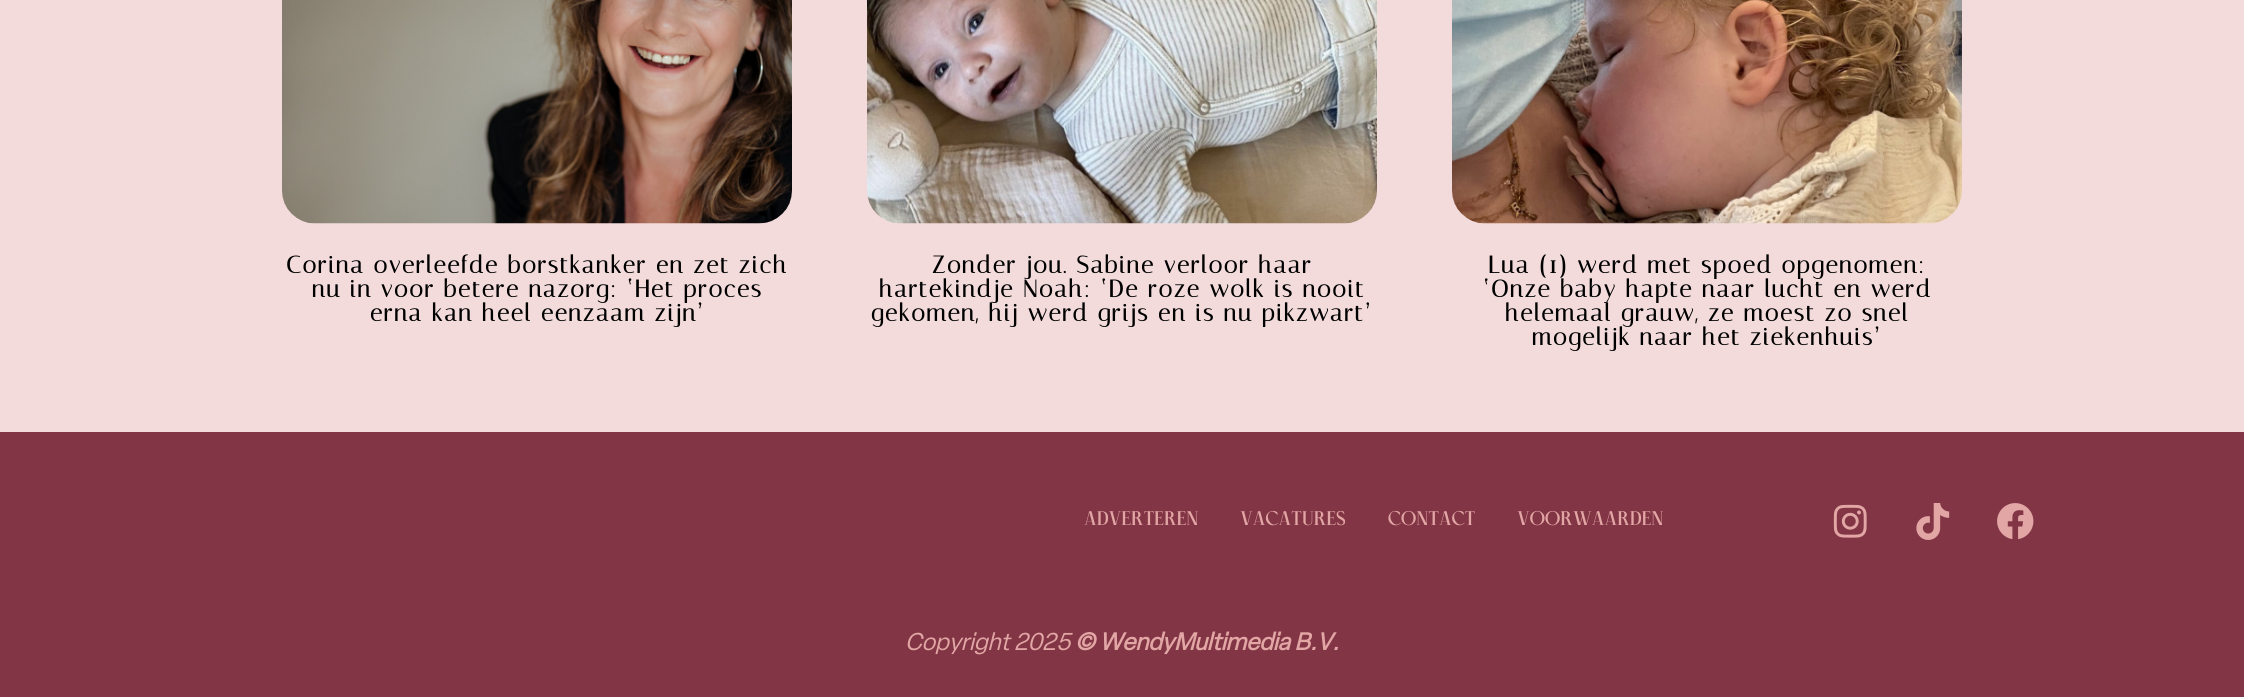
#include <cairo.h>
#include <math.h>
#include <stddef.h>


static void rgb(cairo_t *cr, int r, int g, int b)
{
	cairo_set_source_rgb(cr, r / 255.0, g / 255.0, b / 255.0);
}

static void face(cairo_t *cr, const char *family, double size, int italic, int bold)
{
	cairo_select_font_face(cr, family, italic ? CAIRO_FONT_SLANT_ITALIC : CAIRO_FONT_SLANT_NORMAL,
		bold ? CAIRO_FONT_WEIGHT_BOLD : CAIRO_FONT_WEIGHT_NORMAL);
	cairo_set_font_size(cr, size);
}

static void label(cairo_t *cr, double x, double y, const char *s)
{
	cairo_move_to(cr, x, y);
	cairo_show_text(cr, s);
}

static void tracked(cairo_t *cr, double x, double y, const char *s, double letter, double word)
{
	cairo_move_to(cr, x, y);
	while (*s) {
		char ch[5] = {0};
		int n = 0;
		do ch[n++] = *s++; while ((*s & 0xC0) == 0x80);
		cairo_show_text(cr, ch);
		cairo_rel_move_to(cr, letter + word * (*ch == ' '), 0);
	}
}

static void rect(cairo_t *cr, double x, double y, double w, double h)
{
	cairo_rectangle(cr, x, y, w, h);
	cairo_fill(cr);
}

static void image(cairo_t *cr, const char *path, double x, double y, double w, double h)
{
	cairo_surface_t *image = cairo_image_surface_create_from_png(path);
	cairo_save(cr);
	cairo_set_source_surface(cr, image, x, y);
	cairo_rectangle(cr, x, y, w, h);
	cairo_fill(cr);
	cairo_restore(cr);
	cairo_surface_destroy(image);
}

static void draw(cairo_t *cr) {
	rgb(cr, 243, 219, 219);
	cairo_paint(cr);
	image(cr, "image0.png", 282, 0, 510, 224);
	face(cr, "Italiana", 24, 0, 1);
	rgb(cr, 0, 0, 0);
	tracked(cr, 286, 273, "Corina overleefde borstkanker en zet zich", 1.8, 0);
	tracked(cr, 312, 297, "nu in voor betere nazorg: ‘Het proces", 1.8, 0);
	tracked(cr, 370, 321, "erna kan heel eenzaam zijn’", 1.8, 0);
	image(cr, "image1.png", 867, 0, 510, 224);
	tracked(cr, 932, 273, "Zonder jou. Sabine verloor haar", 1.8, 0);
	tracked(cr, 879, 297, "hartekindje Noah: ‘De roze wolk is nooit", 1.8, 0);
	tracked(cr, 871, 321, "gekomen, hij werd grijs en is nu pikzwart’", 1.8, 0);
	image(cr, "image2.png", 1452, 0, 510, 224);
	tracked(cr, 1488, 273, "Lua (1) werd met spoed opgenomen:", 1.8, 0);
	tracked(cr, 1483, 297, "‘Onze baby hapte naar lucht en werd", 1.8, 0);
	tracked(cr, 1505, 321, "helemaal grauw, ze moest zo snel", 1.8, 0);
	tracked(cr, 1532, 345, "mogelijk naar het ziekenhuis’", 1.8, 0);
	rgb(cr, 130, 53, 69);
	rect(cr, 0, 432, 2244, 265);
	face(cr, "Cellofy", 19.5, 0, 1);
	rgb(cr, 226, 166, 165);
	label(cr, 1084, 525, "ADVERTEREN");
	label(cr, 1240, 525, "VACATURES");
	label(cr, 1388, 525, "CONTACT");
	label(cr, 1517, 525, "VOORWAARDEN");
	image(cr, "image3.png", 1833, 504, 34, 34);
	image(cr, "image4.png", 1916, 503, 34, 37);
	image(cr, "image5.png", 1997, 503, 37, 37);
	face(cr, "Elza", 24, 1, 0);
	label(cr, 905, 650, "Copyright 2025");
	face(cr, "Elza", 24, 1, 1);
	label(cr, 1075, 650, "© WendyMultimedia B.V.");
}

int main(void) {
	cairo_surface_t *surface = cairo_image_surface_create(CAIRO_FORMAT_RGB24, 2244, 697);
	cairo_t *cr = cairo_create(surface);
	cairo_font_options_t *options = cairo_font_options_create();
	cairo_font_options_set_hint_metrics(options, CAIRO_HINT_METRICS_OFF);
	cairo_font_options_set_hint_style(options, CAIRO_HINT_STYLE_NONE);
	cairo_set_font_options(cr, options);
	cairo_set_miter_limit(cr, 4);
	draw(cr);
	cairo_surface_write_to_png(surface, "render.png");
	cairo_font_options_destroy(options);
	cairo_destroy(cr);
	cairo_surface_destroy(surface);
	return 0;
}
